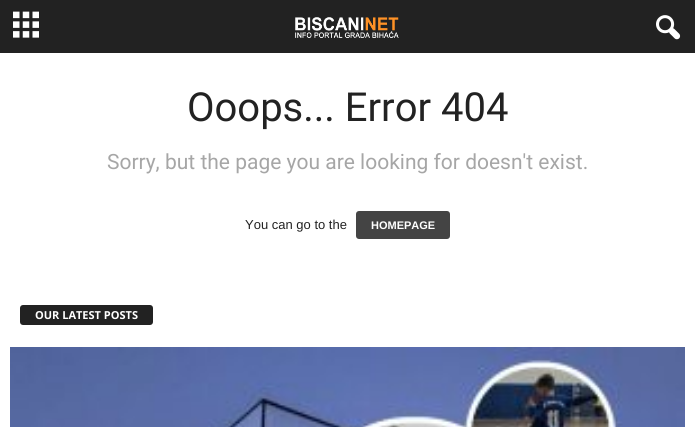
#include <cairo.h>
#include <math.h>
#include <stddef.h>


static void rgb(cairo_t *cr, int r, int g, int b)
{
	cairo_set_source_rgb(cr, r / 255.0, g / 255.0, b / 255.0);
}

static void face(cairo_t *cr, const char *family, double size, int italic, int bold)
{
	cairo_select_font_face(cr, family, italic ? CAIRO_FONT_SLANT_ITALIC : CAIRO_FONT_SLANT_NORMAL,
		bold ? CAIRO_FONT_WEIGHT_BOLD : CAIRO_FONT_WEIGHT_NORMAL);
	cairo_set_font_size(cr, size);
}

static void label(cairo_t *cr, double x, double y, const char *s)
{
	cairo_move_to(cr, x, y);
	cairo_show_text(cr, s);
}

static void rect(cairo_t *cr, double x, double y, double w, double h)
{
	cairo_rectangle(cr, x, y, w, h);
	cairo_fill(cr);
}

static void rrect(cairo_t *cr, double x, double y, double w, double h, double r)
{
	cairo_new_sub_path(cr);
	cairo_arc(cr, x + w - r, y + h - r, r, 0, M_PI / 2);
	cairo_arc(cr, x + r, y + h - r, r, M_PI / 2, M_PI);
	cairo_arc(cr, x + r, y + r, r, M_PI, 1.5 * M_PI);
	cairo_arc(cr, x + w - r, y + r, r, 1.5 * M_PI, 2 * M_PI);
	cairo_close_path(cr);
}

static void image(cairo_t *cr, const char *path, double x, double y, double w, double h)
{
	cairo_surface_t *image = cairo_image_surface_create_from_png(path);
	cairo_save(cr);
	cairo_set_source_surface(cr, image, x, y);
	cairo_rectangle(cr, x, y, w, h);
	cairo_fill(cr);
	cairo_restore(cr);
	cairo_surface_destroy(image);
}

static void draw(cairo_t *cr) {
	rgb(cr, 255, 255, 255);
	cairo_paint(cr);
	rgb(cr, 34, 34, 34);
	rect(cr, 0, 0, 695, 53);
	image(cr, "image0.png", 13, 11, 26, 27);
	image(cr, "image1.png", 295, 17, 104, 21);
	image(cr, "image2.png", 656, 15, 25, 25);
	face(cr, "Roboto", 40, 0, 0);
	label(cr, 187, 121, "Ooops... Error 404");
	face(cr, "Roboto", 21, 0, 0);
	rgb(cr, 166, 166, 166);
	label(cr, 107, 169, "Sorry, but the page you are looking for doesn't exist.");
	face(cr, "Liberation Sans", 13, 0, 0);
	rgb(cr, 34, 34, 34);
	label(cr, 245, 229, "You can go to the");
	rgb(cr, 68, 68, 68);
	rrect(cr, 356, 211, 94, 28, 3);
	cairo_fill(cr);
	face(cr, "Liberation Sans", 11, 0, 1);
	rgb(cr, 255, 255, 255);
	label(cr, 371, 229, "HOMEPAGE");
	rgb(cr, 34, 34, 34);
	rrect(cr, 20, 305, 133, 20, 3);
	cairo_fill(cr);
	face(cr, "Open Sans", 11, 0, 1);
	rgb(cr, 255, 255, 255);
	label(cr, 35, 319, "OUR LATEST POSTS");
	image(cr, "image3.png", 10, 347, 675, 80);
}

int main(void) {
	cairo_surface_t *surface = cairo_image_surface_create(CAIRO_FORMAT_RGB24, 695, 427);
	cairo_t *cr = cairo_create(surface);
	cairo_font_options_t *options = cairo_font_options_create();
	cairo_font_options_set_hint_metrics(options, CAIRO_HINT_METRICS_OFF);
	cairo_font_options_set_hint_style(options, CAIRO_HINT_STYLE_NONE);
	cairo_set_font_options(cr, options);
	cairo_set_miter_limit(cr, 4);
	draw(cr);
	cairo_surface_write_to_png(surface, "render.png");
	cairo_font_options_destroy(options);
	cairo_destroy(cr);
	cairo_surface_destroy(surface);
	return 0;
}
